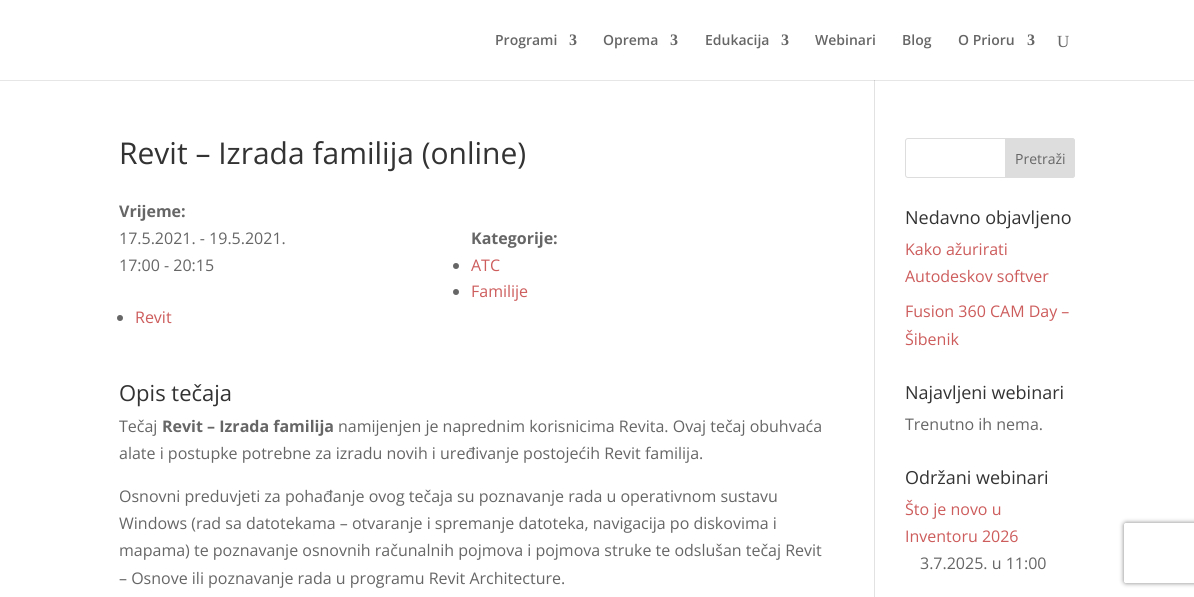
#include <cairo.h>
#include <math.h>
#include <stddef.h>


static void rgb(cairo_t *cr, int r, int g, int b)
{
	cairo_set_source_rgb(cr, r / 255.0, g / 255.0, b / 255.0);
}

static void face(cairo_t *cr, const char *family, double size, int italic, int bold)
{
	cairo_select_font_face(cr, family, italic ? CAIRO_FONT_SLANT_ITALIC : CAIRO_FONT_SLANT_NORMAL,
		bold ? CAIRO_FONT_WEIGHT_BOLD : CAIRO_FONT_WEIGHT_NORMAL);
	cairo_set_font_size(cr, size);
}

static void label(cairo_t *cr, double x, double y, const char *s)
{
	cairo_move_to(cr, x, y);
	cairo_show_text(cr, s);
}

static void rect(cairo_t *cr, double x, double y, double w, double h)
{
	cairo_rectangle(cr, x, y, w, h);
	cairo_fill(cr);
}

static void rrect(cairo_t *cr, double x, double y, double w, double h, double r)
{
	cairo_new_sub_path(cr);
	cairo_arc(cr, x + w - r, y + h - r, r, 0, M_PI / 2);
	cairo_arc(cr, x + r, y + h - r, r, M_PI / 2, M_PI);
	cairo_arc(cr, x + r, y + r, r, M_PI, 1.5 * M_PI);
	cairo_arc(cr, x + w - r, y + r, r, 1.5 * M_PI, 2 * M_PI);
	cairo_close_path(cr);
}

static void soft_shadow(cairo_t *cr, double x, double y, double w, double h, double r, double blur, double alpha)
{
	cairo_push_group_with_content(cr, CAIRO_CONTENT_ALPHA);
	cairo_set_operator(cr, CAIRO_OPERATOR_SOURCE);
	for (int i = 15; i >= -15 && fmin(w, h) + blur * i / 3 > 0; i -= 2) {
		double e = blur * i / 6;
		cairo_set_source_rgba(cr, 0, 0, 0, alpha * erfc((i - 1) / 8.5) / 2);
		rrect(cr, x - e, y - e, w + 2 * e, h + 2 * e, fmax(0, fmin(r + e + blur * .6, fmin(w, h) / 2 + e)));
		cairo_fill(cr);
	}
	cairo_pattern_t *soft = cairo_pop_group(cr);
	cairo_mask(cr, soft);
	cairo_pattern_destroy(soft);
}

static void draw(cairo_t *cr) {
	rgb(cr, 255, 255, 255);
	cairo_paint(cr);
	rgb(cr, 230, 230, 230);
	rect(cr, 0, 80, 1194, 1);
	face(cr, "Open Sans SemiBold", 14, 0, 0);
	rgb(cr, 102, 102, 102);
	label(cr, 495, 45, "Programi");
	face(cr, "Liberation Serif", 16, 0, 1);
	label(cr, 569, 45, "3");
	face(cr, "Open Sans SemiBold", 14, 0, 0);
	label(cr, 603, 45, "Oprema");
	face(cr, "Liberation Serif", 16, 0, 1);
	label(cr, 670, 45, "3");
	face(cr, "Open Sans SemiBold", 14, 0, 0);
	label(cr, 705, 45, "Edukacija");
	face(cr, "Liberation Serif", 16, 0, 1);
	label(cr, 781, 45, "3");
	face(cr, "Open Sans SemiBold", 14, 0, 0);
	label(cr, 815, 45, "Webinari");
	label(cr, 902, 45, "Blog");
	label(cr, 958, 45, "O Prioru");
	face(cr, "Liberation Serif", 16, 0, 1);
	label(cr, 1027, 45, "3");
	face(cr, "Liberation Serif", 17, 0, 0);
	label(cr, 1057, 47, "U");
	rgb(cr, 226, 226, 226);
	rect(cr, 874, 80, 1, 517);
	rgb(cr, 203, 203, 203);
	rect(cr, 874, 80, 1, 1);
	face(cr, "Open Sans", 30, 0, 0);
	rgb(cr, 51, 51, 51);
	label(cr, 119, 164, "Revit – Izrada familija (online)");
	face(cr, "Open Sans", 16, 0, 1);
	rgb(cr, 102, 102, 102);
	label(cr, 119, 217, "Vrijeme:");
	face(cr, "Open Sans", 16, 0, 0);
	label(cr, 119, 244, "17.5.2021. - 19.5.2021.");
	label(cr, 119, 271, "17:00 - 20:15");
	face(cr, "Open Sans", 16, 0, 1);
	label(cr, 471, 244, "Kategorije:");
	cairo_new_path(cr);
	cairo_arc(cr, 456, 266, 3, 0, 2 * M_PI);
	cairo_fill(cr);
	face(cr, "Open Sans", 16, 0, 0);
	rgb(cr, 205, 92, 92);
	label(cr, 471, 271, "ATC");
	rgb(cr, 102, 102, 102);
	cairo_new_path(cr);
	cairo_arc(cr, 456, 292, 3, 0, 2 * M_PI);
	cairo_fill(cr);
	rgb(cr, 205, 92, 92);
	label(cr, 471, 297, "Familije");
	rgb(cr, 102, 102, 102);
	cairo_new_path(cr);
	cairo_arc(cr, 120, 318, 3, 0, 2 * M_PI);
	cairo_fill(cr);
	rgb(cr, 205, 92, 92);
	label(cr, 135, 323, "Revit");
	face(cr, "Open Sans", 22, 0, 0);
	rgb(cr, 51, 51, 51);
	label(cr, 119, 401, "Opis tečaja");
	face(cr, "Open Sans", 16, 0, 0);
	rgb(cr, 102, 102, 102);
	label(cr, 119, 432, "Tečaj");
	face(cr, "Open Sans", 16, 0, 1);
	label(cr, 162, 432, "Revit – Izrada familija");
	face(cr, "Open Sans", 16, 0, 0);
	label(cr, 338, 432, "namijenjen je naprednim korisnicima Revita. Ovaj tečaj obuhvaća");
	label(cr, 119, 459, "alate i postupke potrebne za izradu novih i uređivanje postojećih Revit familija.");
	label(cr, 119, 502, "Osnovni preduvjeti za pohađanje ovog tečaja su poznavanje rada u operativnom sustavu");
	label(cr, 119, 529, "Windows (rad sa datotekama – otvaranje i spremanje datoteka, navigacija po diskovima i");
	label(cr, 119, 556, "mapama) te poznavanje osnovnih računalnih pojmova i pojmova struke te odslušan tečaj Revit");
	label(cr, 119, 584, "– Osnove ili poznavanje rada u programu Revit Architecture.");
	rrect(cr, 905.5, 138.5, 169, 39, 2.5);
	rgb(cr, 221, 221, 221);
	cairo_set_line_width(cr, 1);
	cairo_stroke(cr);
	cairo_new_path(cr);
	cairo_move_to(cr, 1005.5, 138.5);
	cairo_line_to(cr, 1072, 138.5);
	cairo_curve_to(cr, 1073.5, 138.5, 1074.5, 139.5, 1074.5, 141);
	cairo_line_to(cr, 1074.5, 175);
	cairo_curve_to(cr, 1074.5, 176.5, 1073.5, 177.5, 1072, 177.5);
	cairo_line_to(cr, 1005.5, 177.5);
	cairo_close_path(cr);
	cairo_fill_preserve(cr);
	cairo_stroke(cr);
	face(cr, "Open Sans", 14, 0, 0);
	rgb(cr, 102, 102, 102);
	label(cr, 1015, 164, "Pretraži");
	face(cr, "Open Sans", 18, 0, 0);
	rgb(cr, 51, 51, 51);
	label(cr, 905, 224, "Nedavno objavljeno");
	face(cr, "Open Sans", 16, 0, 0);
	rgb(cr, 205, 92, 92);
	label(cr, 905, 255, "Kako ažurirati");
	label(cr, 905, 282, "Autodeskov softver");
	label(cr, 905, 317, "Fusion 360 CAM Day –");
	label(cr, 905, 345, "Šibenik");
	face(cr, "Open Sans", 18, 0, 0);
	rgb(cr, 51, 51, 51);
	label(cr, 905, 399, "Najavljeni webinari");
	face(cr, "Open Sans", 16, 0, 0);
	rgb(cr, 102, 102, 102);
	label(cr, 905, 430, "Trenutno ih nema.");
	face(cr, "Open Sans", 18, 0, 0);
	rgb(cr, 51, 51, 51);
	label(cr, 905, 484, "Održani webinari");
	face(cr, "Open Sans", 16, 0, 0);
	rgb(cr, 205, 92, 92);
	label(cr, 905, 515, "Što je novo u");
	label(cr, 905, 542, "Inventoru 2026");
	rgb(cr, 102, 102, 102);
	label(cr, 920, 569, "3.7.2025. u 11:00");
	cairo_save(cr);
	cairo_set_fill_rule(cr, CAIRO_FILL_RULE_EVEN_ODD);
	cairo_new_path(cr);
	cairo_move_to(cr, 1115, 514);
	cairo_line_to(cr, 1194, 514);
	cairo_line_to(cr, 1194, 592);
	cairo_line_to(cr, 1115, 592);
	cairo_close_path(cr);
	cairo_move_to(cr, 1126, 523);
	cairo_line_to(cr, 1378, 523);
	cairo_curve_to(cr, 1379, 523, 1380, 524, 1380, 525);
	cairo_line_to(cr, 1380, 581);
	cairo_curve_to(cr, 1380, 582, 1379, 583, 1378, 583);
	cairo_line_to(cr, 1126, 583);
	cairo_curve_to(cr, 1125, 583, 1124, 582, 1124, 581);
	cairo_line_to(cr, 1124, 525);
	cairo_curve_to(cr, 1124, 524, 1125, 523, 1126, 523);
	cairo_close_path(cr);
	cairo_clip(cr);
	rgb(cr, 128, 128, 128);
	soft_shadow(cr, 1124, 523, 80, 60, 2, 2.5, 1);
	cairo_restore(cr);
}

int main(void) {
	cairo_surface_t *surface = cairo_image_surface_create(CAIRO_FORMAT_RGB24, 1194, 597);
	cairo_t *cr = cairo_create(surface);
	cairo_font_options_t *options = cairo_font_options_create();
	cairo_font_options_set_hint_metrics(options, CAIRO_HINT_METRICS_OFF);
	cairo_font_options_set_hint_style(options, CAIRO_HINT_STYLE_NONE);
	cairo_set_font_options(cr, options);
	cairo_set_miter_limit(cr, 4);
	draw(cr);
	cairo_surface_write_to_png(surface, "render.png");
	cairo_font_options_destroy(options);
	cairo_destroy(cr);
	cairo_surface_destroy(surface);
	return 0;
}
